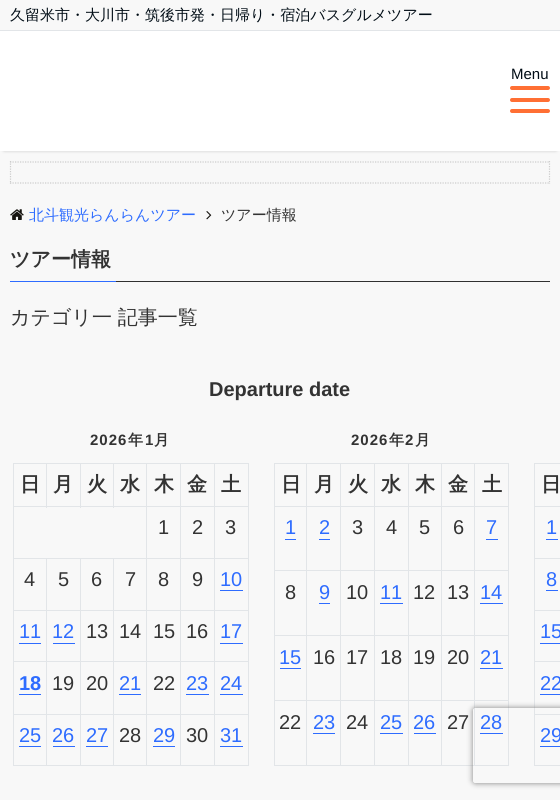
#include <cairo.h>
#include <math.h>
#include <stddef.h>


static void rgb(cairo_t *cr, int r, int g, int b)
{
	cairo_set_source_rgb(cr, r / 255.0, g / 255.0, b / 255.0);
}

static void face(cairo_t *cr, const char *family, double size, int italic, int bold)
{
	cairo_select_font_face(cr, family, italic ? CAIRO_FONT_SLANT_ITALIC : CAIRO_FONT_SLANT_NORMAL,
		bold ? CAIRO_FONT_WEIGHT_BOLD : CAIRO_FONT_WEIGHT_NORMAL);
	cairo_set_font_size(cr, size);
}

static void label(cairo_t *cr, double x, double y, const char *s)
{
	cairo_move_to(cr, x, y);
	cairo_show_text(cr, s);
}

static void tracked(cairo_t *cr, double x, double y, const char *s, double letter, double word)
{
	cairo_move_to(cr, x, y);
	while (*s) {
		char ch[5] = {0};
		int n = 0;
		do ch[n++] = *s++; while ((*s & 0xC0) == 0x80);
		cairo_show_text(cr, ch);
		cairo_rel_move_to(cr, letter + word * (*ch == ' '), 0);
	}
}

static void rect(cairo_t *cr, double x, double y, double w, double h)
{
	cairo_rectangle(cr, x, y, w, h);
	cairo_fill(cr);
}

static void rrect(cairo_t *cr, double x, double y, double w, double h, double r)
{
	cairo_new_sub_path(cr);
	cairo_arc(cr, x + w - r, y + h - r, r, 0, M_PI / 2);
	cairo_arc(cr, x + r, y + h - r, r, M_PI / 2, M_PI);
	cairo_arc(cr, x + r, y + r, r, M_PI, 1.5 * M_PI);
	cairo_arc(cr, x + w - r, y + r, r, 1.5 * M_PI, 2 * M_PI);
	cairo_close_path(cr);
}

static void soft_shadow(cairo_t *cr, double x, double y, double w, double h, double r, double blur, double alpha)
{
	cairo_push_group_with_content(cr, CAIRO_CONTENT_ALPHA);
	cairo_set_operator(cr, CAIRO_OPERATOR_SOURCE);
	for (int i = 15; i >= -15 && fmin(w, h) + blur * i / 3 > 0; i -= 2) {
		double e = blur * i / 6;
		cairo_set_source_rgba(cr, 0, 0, 0, alpha * erfc((i - 1) / 8.5) / 2);
		rrect(cr, x - e, y - e, w + 2 * e, h + 2 * e, fmax(0, fmin(r + e + blur * .6, fmin(w, h) / 2 + e)));
		cairo_fill(cr);
	}
	cairo_pattern_t *soft = cairo_pop_group(cr);
	cairo_mask(cr, soft);
	cairo_pattern_destroy(soft);
}

static void image(cairo_t *cr, const char *path, double x, double y, double w, double h)
{
	cairo_surface_t *image = cairo_image_surface_create_from_png(path);
	cairo_save(cr);
	cairo_set_source_surface(cr, image, x, y);
	cairo_rectangle(cr, x, y, w, h);
	cairo_fill(cr);
	cairo_restore(cr);
	cairo_surface_destroy(image);
}

static void draw(cairo_t *cr) {
	rgb(cr, 248, 248, 248);
	cairo_paint(cr);
	rgb(cr, 226, 229, 232);
	rect(cr, 0, 30, 560, 1);
	face(cr, "WenQuanYi Zen Hei Medium", 15, 0, 0);
	rgb(cr, 0, 12, 21);
	label(cr, 10, 20, "久留米市・大川市・筑後市発・日帰り・宿泊バスグルメツアー");
	rgb(cr, 0, 0, 0);
	soft_shadow(cr, 4, 38, 552, 112, 0, 2, 0.3);
	rgb(cr, 255, 255, 255);
	rect(cr, 0, 31, 560, 120);
	face(cr, "Liberation Sans", 15, 0, 0);
	rgb(cr, 0, 12, 21);
	label(cr, 511, 79, "Menu");
	rgb(cr, 255, 111, 52);
	rrect(cr, 510, 86, 40, 4, 2);
	cairo_fill(cr);
	rrect(cr, 510, 98, 40, 4, 2);
	cairo_fill(cr);
	rrect(cr, 510, 109, 40, 4, 2);
	cairo_fill(cr);
	cairo_new_path(cr);
	cairo_move_to(cr, 10, 162);
	cairo_line_to(cr, 550, 162);
	rgb(cr, 204, 204, 204);
	cairo_set_line_width(cr, 1.2);
	cairo_set_dash(cr, (double[]){1.25, 1.25}, 2, 0);
	cairo_stroke(cr);
	cairo_new_path(cr);
	cairo_move_to(cr, 549.5, 161);
	cairo_line_to(cr, 549.5, 184);
	cairo_stroke(cr);
	cairo_new_path(cr);
	cairo_move_to(cr, 10, 183);
	cairo_line_to(cr, 550, 183);
	cairo_stroke(cr);
	cairo_new_path(cr);
	cairo_move_to(cr, 10.5, 161);
	cairo_line_to(cr, 10.5, 184);
	cairo_stroke(cr);
	image(cr, "image0.png", 10, 209, 14, 11);
	face(cr, "WenQuanYi Zen Hei Medium", 15, 0, 0);
	rgb(cr, 46, 108, 255);
	label(cr, 29, 220, "北斗観光らんらんツアー");
	image(cr, "image1.png", 206, 211, 6, 9);
	rgb(cr, 51, 51, 51);
	label(cr, 221, 220, "ツアー情報");
	rgb(cr, 48, 48, 48);
	rect(cr, 116, 281, 434, 1);
	rgb(cr, 46, 108, 255);
	rect(cr, 10, 281, 106, 1);
	face(cr, "WenQuanYi Zen Hei", 20, 0, 1);
	rgb(cr, 51, 51, 51);
	label(cr, 10, 266, "ツアー情報");
	face(cr, "WenQuanYi Zen Hei Medium", 20, 0, 0);
	label(cr, 10, 324, "カテゴリ一 記事一覧");
	face(cr, "Liberation Sans", 20, 0, 1);
	label(cr, 209, 396, "Departure date");
	face(cr, "Liberation Sans", 15, 0, 1);
	tracked(cr, 90, 445, "2026", 1, 0);
	face(cr, "WenQuanYi Zen Hei", 15, 0, 1);
	tracked(cr, 128, 445, "年", 1, 0);
	face(cr, "Liberation Sans", 15, 0, 1);
	tracked(cr, 145, 445, "1", 1, 0);
	face(cr, "WenQuanYi Zen Hei", 15, 0, 1);
	tracked(cr, 154, 445, "月", 1, 0);
	rgb(cr, 226, 229, 232);
	rect(cr, 214, 463, 35, 1);
	rect(cr, 214, 506, 35, 1);
	rect(cr, 214, 558, 35, 1);
	rect(cr, 214, 610, 35, 1);
	rect(cr, 214, 661, 35, 1);
	rect(cr, 214, 714, 35, 1);
	rect(cr, 248, 714, 1, 52);
	rect(cr, 214, 765, 35, 1);
	rect(cr, 214, 714, 1, 52);
	rect(cr, 180, 714, 35, 1);
	rect(cr, 214, 661, 1, 54);
	rect(cr, 180, 661, 35, 1);
	rect(cr, 214, 610, 1, 53);
	rect(cr, 180, 610, 35, 1);
	rect(cr, 214, 558, 1, 53);
	rect(cr, 180, 558, 35, 1);
	rect(cr, 214, 506, 1, 53);
	rect(cr, 180, 506, 35, 1);
	rect(cr, 214, 463, 1, 45);
	rect(cr, 180, 463, 35, 1);
	rect(cr, 180, 765, 35, 1);
	rect(cr, 180, 714, 1, 52);
	rect(cr, 146, 714, 35, 1);
	rect(cr, 180, 661, 1, 54);
	rect(cr, 146, 661, 35, 1);
	rect(cr, 180, 610, 1, 53);
	rect(cr, 146, 610, 35, 1);
	rect(cr, 180, 558, 1, 53);
	rect(cr, 146, 558, 35, 1);
	rect(cr, 180, 506, 1, 53);
	rect(cr, 146, 506, 35, 1);
	rect(cr, 180, 463, 1, 45);
	rect(cr, 146, 463, 35, 1);
	rect(cr, 146, 765, 35, 1);
	rect(cr, 146, 714, 1, 52);
	rect(cr, 113, 714, 35, 1);
	rect(cr, 146, 661, 1, 54);
	rect(cr, 113, 661, 35, 1);
	rect(cr, 146, 610, 1, 53);
	rect(cr, 113, 610, 35, 1);
	rect(cr, 146, 558, 1, 53);
	rect(cr, 113, 558, 35, 1);
	rect(cr, 146, 506, 1, 53);
	rect(cr, 13, 506, 135, 1);
	rect(cr, 146, 463, 1, 45);
	rect(cr, 113, 463, 35, 1);
	rect(cr, 113, 463, 1, 45);
	rect(cr, 80, 463, 34, 1);
	rect(cr, 80, 463, 1, 45);
	rect(cr, 46, 463, 35, 1);
	rect(cr, 46, 463, 1, 45);
	rect(cr, 13, 463, 35, 1);
	rect(cr, 113, 765, 35, 1);
	rect(cr, 113, 714, 1, 52);
	rect(cr, 80, 714, 34, 1);
	rect(cr, 113, 661, 1, 54);
	rect(cr, 80, 661, 34, 1);
	rect(cr, 113, 610, 1, 53);
	rect(cr, 80, 610, 34, 1);
	rect(cr, 113, 558, 1, 53);
	rect(cr, 80, 558, 34, 1);
	rect(cr, 80, 765, 34, 1);
	rect(cr, 80, 714, 1, 52);
	rect(cr, 46, 714, 35, 1);
	rect(cr, 80, 661, 1, 54);
	rect(cr, 46, 661, 35, 1);
	rect(cr, 80, 610, 1, 53);
	rect(cr, 46, 610, 35, 1);
	rect(cr, 80, 558, 1, 53);
	rect(cr, 46, 558, 35, 1);
	rect(cr, 46, 765, 35, 1);
	rect(cr, 46, 714, 1, 52);
	rect(cr, 13, 714, 35, 1);
	rect(cr, 46, 661, 1, 54);
	rect(cr, 13, 661, 35, 1);
	rect(cr, 46, 610, 1, 53);
	rect(cr, 13, 610, 35, 1);
	rect(cr, 46, 558, 1, 53);
	rect(cr, 13, 558, 35, 1);
	rect(cr, 13, 765, 35, 1);
	rect(cr, 13, 714, 1, 52);
	rect(cr, 13, 661, 1, 54);
	rect(cr, 13, 610, 1, 53);
	rect(cr, 13, 558, 1, 53);
	rect(cr, 13, 506, 1, 53);
	rect(cr, 13, 463, 1, 45);
	face(cr, "WenQuanYi Zen Hei", 20, 0, 1);
	rgb(cr, 51, 51, 51);
	label(cr, 20, 491, "日");
	label(cr, 53, 491, "月");
	label(cr, 87, 491, "火");
	label(cr, 120, 491, "水");
	label(cr, 154, 491, "木");
	label(cr, 187, 491, "金");
	rgb(cr, 226, 229, 232);
	rect(cr, 248, 661, 1, 54);
	rect(cr, 248, 610, 1, 53);
	rect(cr, 248, 558, 1, 53);
	rect(cr, 248, 506, 1, 53);
	rect(cr, 248, 463, 1, 45);
	rgb(cr, 51, 51, 51);
	label(cr, 221, 491, "土");
	face(cr, "Liberation Sans", 20, 0, 0);
	label(cr, 158, 534, "1");
	label(cr, 192, 534, "2");
	label(cr, 225, 534, "3");
	label(cr, 24, 586, "4");
	label(cr, 58, 586, "5");
	label(cr, 91, 586, "6");
	label(cr, 125, 586, "7");
	label(cr, 158, 586, "8");
	label(cr, 192, 586, "9");
	rgb(cr, 46, 108, 255);
	label(cr, 220, 586, "10");
	rect(cr, 220, 590, 23, 1);
	label(cr, 19, 638, "11");
	rect(cr, 19, 643, 22, 1);
	label(cr, 52, 638, "12");
	rect(cr, 53, 643, 22, 1);
	rgb(cr, 51, 51, 51);
	label(cr, 86, 638, "13");
	label(cr, 119, 638, "14");
	label(cr, 153, 638, "15");
	label(cr, 186, 638, "16");
	rgb(cr, 46, 108, 255);
	label(cr, 220, 638, "17");
	rect(cr, 220, 643, 23, 1);
	face(cr, "Liberation Sans", 20, 0, 1);
	label(cr, 19, 690, "18");
	rect(cr, 19, 694, 22, 1);
	face(cr, "Liberation Sans", 20, 0, 0);
	rgb(cr, 51, 51, 51);
	label(cr, 52, 690, "19");
	label(cr, 86, 690, "20");
	rgb(cr, 46, 108, 255);
	label(cr, 119, 690, "21");
	rect(cr, 119, 694, 22, 1);
	rgb(cr, 51, 51, 51);
	label(cr, 153, 690, "22");
	rgb(cr, 46, 108, 255);
	label(cr, 186, 690, "23");
	rect(cr, 186, 694, 23, 1);
	label(cr, 220, 690, "24");
	rect(cr, 220, 694, 23, 1);
	label(cr, 19, 742, "25");
	rect(cr, 19, 746, 22, 1);
	label(cr, 52, 742, "26");
	rect(cr, 53, 746, 22, 1);
	label(cr, 86, 742, "27");
	rect(cr, 86, 746, 22, 1);
	rgb(cr, 51, 51, 51);
	label(cr, 119, 742, "28");
	rgb(cr, 46, 108, 255);
	label(cr, 153, 742, "29");
	rect(cr, 153, 746, 22, 1);
	rgb(cr, 51, 51, 51);
	label(cr, 186, 742, "30");
	rgb(cr, 46, 108, 255);
	label(cr, 220, 742, "31");
	rect(cr, 220, 746, 23, 1);
	face(cr, "Liberation Sans", 15, 0, 1);
	rgb(cr, 51, 51, 51);
	tracked(cr, 351, 445, "2026", 1, 0);
	face(cr, "WenQuanYi Zen Hei", 15, 0, 1);
	tracked(cr, 389, 445, "年", 1, 0);
	face(cr, "Liberation Sans", 15, 0, 1);
	tracked(cr, 405, 445, "2", 1, 0);
	face(cr, "WenQuanYi Zen Hei", 15, 0, 1);
	tracked(cr, 415, 445, "月", 1, 0);
	rgb(cr, 226, 229, 232);
	rect(cr, 474, 463, 35, 1);
	rect(cr, 474, 506, 35, 1);
	rect(cr, 474, 570, 35, 1);
	rect(cr, 474, 635, 35, 1);
	rect(cr, 474, 700, 35, 1);
	rect(cr, 508, 700, 1, 66);
	rect(cr, 474, 765, 35, 1);
	rect(cr, 474, 700, 1, 66);
	rect(cr, 441, 700, 34, 1);
	rect(cr, 474, 635, 1, 66);
	rect(cr, 441, 635, 34, 1);
	rect(cr, 474, 570, 1, 66);
	rect(cr, 441, 570, 34, 1);
	rect(cr, 474, 506, 1, 65);
	rect(cr, 441, 506, 34, 1);
	rect(cr, 474, 463, 1, 45);
	rect(cr, 441, 463, 34, 1);
	rect(cr, 441, 765, 34, 1);
	rect(cr, 441, 700, 1, 66);
	rect(cr, 408, 700, 35, 1);
	rect(cr, 441, 635, 1, 66);
	rect(cr, 408, 635, 35, 1);
	rect(cr, 441, 570, 1, 66);
	rect(cr, 408, 570, 35, 1);
	rect(cr, 441, 506, 1, 65);
	rect(cr, 408, 506, 35, 1);
	rect(cr, 441, 463, 1, 45);
	rect(cr, 408, 463, 35, 1);
	rect(cr, 408, 765, 35, 1);
	rect(cr, 408, 700, 1, 66);
	rect(cr, 374, 700, 35, 1);
	rect(cr, 408, 635, 1, 66);
	rect(cr, 374, 635, 35, 1);
	rect(cr, 408, 570, 1, 66);
	rect(cr, 374, 570, 35, 1);
	rect(cr, 408, 506, 1, 65);
	rect(cr, 374, 506, 35, 1);
	rect(cr, 408, 463, 1, 45);
	rect(cr, 374, 463, 35, 1);
	rect(cr, 374, 765, 35, 1);
	rect(cr, 374, 700, 1, 66);
	rect(cr, 340, 700, 35, 1);
	rect(cr, 374, 635, 1, 66);
	rect(cr, 340, 635, 35, 1);
	rect(cr, 374, 570, 1, 66);
	rect(cr, 340, 570, 35, 1);
	rect(cr, 374, 506, 1, 65);
	rect(cr, 340, 506, 35, 1);
	rect(cr, 374, 463, 1, 45);
	rect(cr, 340, 463, 35, 1);
	rect(cr, 340, 765, 35, 1);
	rect(cr, 340, 700, 1, 66);
	rect(cr, 306, 700, 35, 1);
	rect(cr, 340, 635, 1, 66);
	rect(cr, 306, 635, 35, 1);
	rect(cr, 340, 570, 1, 66);
	rect(cr, 306, 570, 35, 1);
	rect(cr, 340, 506, 1, 65);
	rect(cr, 306, 506, 35, 1);
	rect(cr, 340, 463, 1, 45);
	rect(cr, 306, 463, 35, 1);
	rect(cr, 306, 765, 35, 1);
	rect(cr, 306, 700, 1, 66);
	rect(cr, 274, 700, 34, 1);
	rect(cr, 306, 635, 1, 66);
	rect(cr, 274, 635, 34, 1);
	rect(cr, 306, 570, 1, 66);
	rect(cr, 274, 570, 34, 1);
	rect(cr, 306, 506, 1, 65);
	rect(cr, 274, 506, 34, 1);
	rect(cr, 306, 463, 1, 45);
	rect(cr, 274, 463, 34, 1);
	rect(cr, 274, 765, 34, 1);
	rect(cr, 274, 700, 1, 66);
	rect(cr, 274, 635, 1, 66);
	rect(cr, 274, 570, 1, 66);
	rect(cr, 274, 506, 1, 65);
	rect(cr, 274, 463, 1, 45);
	face(cr, "WenQuanYi Zen Hei", 20, 0, 1);
	rgb(cr, 51, 51, 51);
	label(cr, 281, 491, "日");
	label(cr, 314, 491, "月");
	label(cr, 348, 491, "火");
	label(cr, 381, 491, "水");
	label(cr, 415, 491, "木");
	label(cr, 448, 491, "金");
	rgb(cr, 226, 229, 232);
	rect(cr, 508, 635, 1, 66);
	rect(cr, 508, 570, 1, 66);
	rect(cr, 508, 506, 1, 65);
	rect(cr, 508, 463, 1, 45);
	rgb(cr, 51, 51, 51);
	label(cr, 482, 491, "土");
	face(cr, "Liberation Sans", 20, 0, 0);
	rgb(cr, 46, 108, 255);
	label(cr, 285, 534, "1");
	rect(cr, 285, 539, 11, 1);
	label(cr, 319, 534, "2");
	rect(cr, 319, 539, 11, 1);
	rgb(cr, 51, 51, 51);
	label(cr, 352, 534, "3");
	label(cr, 386, 534, "4");
	label(cr, 419, 534, "5");
	label(cr, 453, 534, "6");
	rgb(cr, 46, 108, 255);
	label(cr, 486, 534, "7");
	rect(cr, 486, 539, 12, 1);
	rgb(cr, 51, 51, 51);
	label(cr, 285, 599, "8");
	rgb(cr, 46, 108, 255);
	label(cr, 319, 599, "9");
	rect(cr, 319, 603, 11, 1);
	rgb(cr, 51, 51, 51);
	label(cr, 346, 599, "10");
	rgb(cr, 46, 108, 255);
	label(cr, 380, 599, "11");
	rect(cr, 380, 603, 23, 1);
	rgb(cr, 51, 51, 51);
	label(cr, 413, 599, "12");
	label(cr, 447, 599, "13");
	rgb(cr, 46, 108, 255);
	label(cr, 480, 599, "14");
	rect(cr, 480, 603, 23, 1);
	label(cr, 279, 664, "15");
	rect(cr, 280, 668, 21, 1);
	rgb(cr, 51, 51, 51);
	label(cr, 313, 664, "16");
	label(cr, 346, 664, "17");
	label(cr, 380, 664, "18");
	label(cr, 413, 664, "19");
	label(cr, 447, 664, "20");
	rgb(cr, 46, 108, 255);
	label(cr, 480, 664, "21");
	rect(cr, 480, 668, 23, 1);
	rgb(cr, 51, 51, 51);
	label(cr, 279, 729, "22");
	rgb(cr, 46, 108, 255);
	label(cr, 313, 729, "23");
	rect(cr, 313, 733, 22, 1);
	rgb(cr, 51, 51, 51);
	label(cr, 346, 729, "24");
	rgb(cr, 46, 108, 255);
	label(cr, 380, 729, "25");
	rect(cr, 380, 733, 23, 1);
	label(cr, 413, 729, "26");
	rect(cr, 414, 733, 22, 1);
	rgb(cr, 51, 51, 51);
	label(cr, 447, 729, "27");
	rgb(cr, 46, 108, 255);
	label(cr, 480, 729, "28");
	rect(cr, 480, 733, 23, 1);
	rgb(cr, 226, 229, 232);
	rect(cr, 534, 463, 26, 1);
	rect(cr, 534, 506, 26, 1);
	rect(cr, 534, 558, 26, 1);
	rect(cr, 534, 610, 26, 1);
	rect(cr, 534, 661, 26, 1);
	rect(cr, 534, 714, 26, 1);
	rect(cr, 534, 765, 26, 1);
	rect(cr, 534, 714, 1, 52);
	rect(cr, 534, 661, 1, 54);
	rect(cr, 534, 610, 1, 53);
	rect(cr, 534, 558, 1, 53);
	rect(cr, 534, 506, 1, 53);
	rect(cr, 534, 463, 1, 45);
	face(cr, "WenQuanYi Zen Hei", 20, 0, 1);
	rgb(cr, 51, 51, 51);
	label(cr, 541, 491, "日");
	face(cr, "Liberation Sans", 20, 0, 0);
	rgb(cr, 46, 108, 255);
	label(cr, 546, 534, "1");
	rect(cr, 546, 539, 12, 1);
	label(cr, 546, 586, "8");
	rect(cr, 546, 590, 12, 1);
	label(cr, 540, 638, "15");
	rect(cr, 540, 643, 20, 1);
	label(cr, 540, 690, "22");
	rect(cr, 540, 694, 20, 1);
	label(cr, 540, 742, "29");
	rect(cr, 540, 746, 20, 1);
	cairo_save(cr);
	cairo_set_fill_rule(cr, CAIRO_FILL_RULE_EVEN_ODD);
	cairo_new_path(cr);
	cairo_move_to(cr, 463, 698);
	cairo_line_to(cr, 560, 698);
	cairo_line_to(cr, 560, 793);
	cairo_line_to(cr, 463, 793);
	cairo_close_path(cr);
	cairo_move_to(cr, 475.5, 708);
	cairo_line_to(cr, 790.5, 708);
	cairo_curve_to(cr, 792, 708, 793, 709, 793, 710.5);
	cairo_line_to(cr, 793, 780.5);
	cairo_curve_to(cr, 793, 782, 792, 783, 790.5, 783);
	cairo_line_to(cr, 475.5, 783);
	cairo_curve_to(cr, 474, 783, 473, 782, 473, 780.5);
	cairo_line_to(cr, 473, 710.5);
	cairo_curve_to(cr, 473, 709, 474, 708, 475.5, 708);
	cairo_close_path(cr);
	cairo_clip(cr);
	rgb(cr, 128, 128, 128);
	soft_shadow(cr, 473, 708, 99, 75, 2.5, 3, 1);
	cairo_restore(cr);
}

int main(void) {
	cairo_surface_t *surface = cairo_image_surface_create(CAIRO_FORMAT_RGB24, 560, 800);
	cairo_t *cr = cairo_create(surface);
	cairo_font_options_t *options = cairo_font_options_create();
	cairo_font_options_set_hint_metrics(options, CAIRO_HINT_METRICS_OFF);
	cairo_font_options_set_hint_style(options, CAIRO_HINT_STYLE_NONE);
	cairo_set_font_options(cr, options);
	cairo_set_miter_limit(cr, 4);
	draw(cr);
	cairo_surface_write_to_png(surface, "render.png");
	cairo_font_options_destroy(options);
	cairo_destroy(cr);
	cairo_surface_destroy(surface);
	return 0;
}
